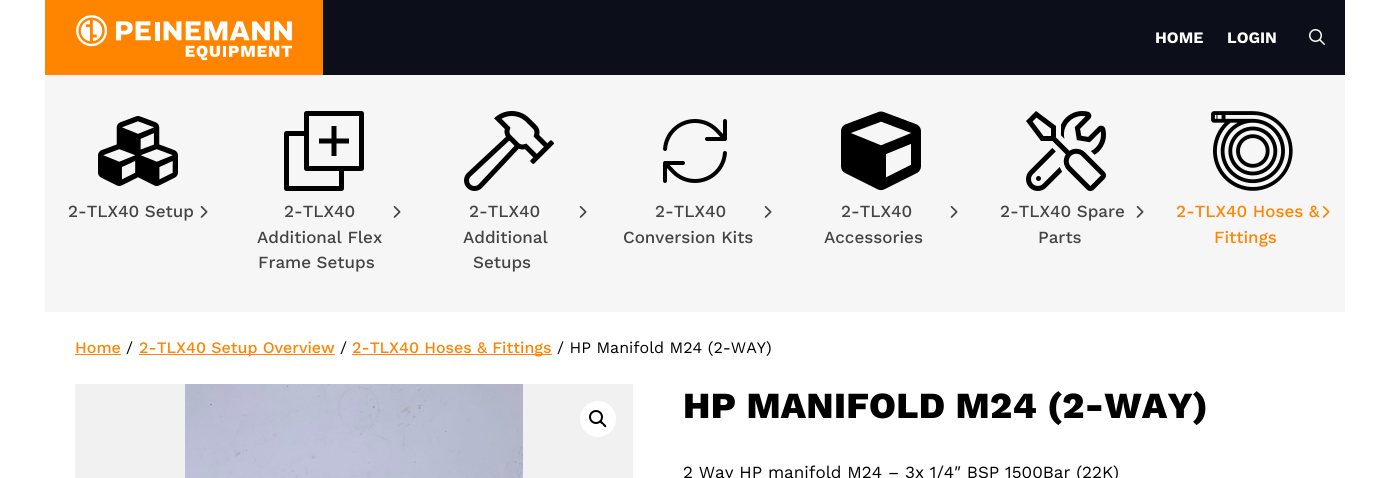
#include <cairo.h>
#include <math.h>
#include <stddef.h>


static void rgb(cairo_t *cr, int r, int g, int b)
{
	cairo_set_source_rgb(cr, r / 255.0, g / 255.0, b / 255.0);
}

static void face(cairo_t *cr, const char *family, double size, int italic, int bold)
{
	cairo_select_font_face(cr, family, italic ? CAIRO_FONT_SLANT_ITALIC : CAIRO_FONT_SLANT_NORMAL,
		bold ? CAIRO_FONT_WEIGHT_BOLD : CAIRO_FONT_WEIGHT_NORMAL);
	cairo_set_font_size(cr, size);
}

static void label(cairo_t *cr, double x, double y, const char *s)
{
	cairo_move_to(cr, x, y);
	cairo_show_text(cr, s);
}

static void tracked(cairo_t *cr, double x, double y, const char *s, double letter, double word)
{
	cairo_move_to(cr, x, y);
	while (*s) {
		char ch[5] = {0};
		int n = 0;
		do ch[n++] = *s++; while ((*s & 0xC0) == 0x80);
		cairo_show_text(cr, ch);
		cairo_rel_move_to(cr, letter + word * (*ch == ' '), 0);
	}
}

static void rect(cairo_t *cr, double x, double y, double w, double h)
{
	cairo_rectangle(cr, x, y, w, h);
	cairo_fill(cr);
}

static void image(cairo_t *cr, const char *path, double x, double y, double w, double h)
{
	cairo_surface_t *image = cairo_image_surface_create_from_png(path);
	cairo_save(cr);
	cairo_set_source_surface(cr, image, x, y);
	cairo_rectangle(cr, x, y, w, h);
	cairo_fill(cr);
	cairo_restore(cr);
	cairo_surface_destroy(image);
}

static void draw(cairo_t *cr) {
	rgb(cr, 255, 255, 255);
	cairo_paint(cr);
	rgb(cr, 12, 14, 25);
	rect(cr, 323, 0, 1022, 75);
	rgb(cr, 255, 132, 0);
	rect(cr, 45, 0, 278, 75);
	image(cr, "image0.png", 76, 15, 216, 46);
	face(cr, "Work Sans", 16, 0, 1);
	rgb(cr, 255, 255, 255);
	label(cr, 1155, 43, "HOME");
	label(cr, 1227, 43, "LOGIN");
	image(cr, "image1.png", 1309, 29, 16, 16);
	rgb(cr, 246, 246, 246);
	rect(cr, 45, 75, 1300, 237);
	image(cr, "image2.png", 98, 116, 80, 70);
	face(cr, "Work Sans Medium", 17, 0, 0);
	rgb(cr, 68, 68, 68);
	label(cr, 68, 217, "2-TLX40 Setup");
	image(cr, "image3.png", 200, 206, 8, 12);
	image(cr, "image4.png", 284, 111, 80, 80);
	label(cr, 284, 217, "2-TLX40");
	image(cr, "image3.png", 393, 206, 8, 12);
	label(cr, 257, 243, "Additional Flex");
	label(cr, 258, 268, "Frame Setups");
	image(cr, "image5.png", 464, 111, 90, 80);
	label(cr, 469, 217, "2-TLX40");
	image(cr, "image3.png", 579, 206, 8, 12);
	label(cr, 463, 243, "Additional");
	label(cr, 473, 268, "Setups");
	image(cr, "image6.png", 663, 119, 64, 64);
	label(cr, 655, 217, "2-TLX40");
	image(cr, "image3.png", 764, 206, 8, 12);
	label(cr, 623, 243, "Conversion Kits");
	image(cr, "image7.png", 841, 111, 80, 80);
	label(cr, 841, 217, "2-TLX40");
	image(cr, "image3.png", 950, 206, 8, 12);
	label(cr, 824, 243, "Accessories");
	image(cr, "image8.png", 1026, 111, 80, 80);
	label(cr, 1000, 217, "2-TLX40 Spare");
	image(cr, "image3.png", 1136, 206, 8, 12);
	label(cr, 1038, 243, "Parts");
	image(cr, "image9.png", 1211, 111, 82, 80);
	rgb(cr, 255, 132, 0);
	label(cr, 1176, 217, "2-TLX40 Hoses &");
	image(cr, "image10.png", 1322, 206, 8, 12);
	label(cr, 1214, 243, "Fittings");
	face(cr, "Work Sans Medium", 16, 0, 0);
	label(cr, 75, 353, "Home");
	rect(cr, 75, 354, 46, 1);
	face(cr, "Work Sans", 16, 0, 0);
	rgb(cr, 0, 0, 0);
	label(cr, 126, 353, "/");
	rgb(cr, 255, 132, 0);
	rect(cr, 139, 354, 196, 1);
	face(cr, "Work Sans Medium", 16, 0, 0);
	label(cr, 139, 353, "2-TLX40 Setup Overview");
	face(cr, "Work Sans", 16, 0, 0);
	rgb(cr, 0, 0, 0);
	label(cr, 340, 353, "/");
	rgb(cr, 255, 132, 0);
	rect(cr, 352, 354, 200, 1);
	face(cr, "Work Sans Medium", 16, 0, 0);
	label(cr, 352, 353, "2-TLX40 Hoses & Fittings");
	face(cr, "Work Sans", 16, 0, 0);
	rgb(cr, 0, 0, 0);
	label(cr, 557, 353, "/ HP Manifold M24 (2-WAY)");
	rgb(cr, 241, 241, 241);
	rect(cr, 75, 384, 558, 94);
	image(cr, "image11.png", 185, 384, 338, 94);
	rgb(cr, 255, 255, 255);
	cairo_arc(cr, 598, 419, 18, 0, 2 * M_PI);
	cairo_fill(cr);
	cairo_arc(cr, 596, 417, 6, 0, 2 * M_PI);
	rgb(cr, 0, 0, 0);
	cairo_stroke(cr);
	cairo_new_path(cr);
	cairo_move_to(cr, 600, 421);
	cairo_curve_to(cr, 601.5, 420, 603, 422.5, 603.5, 423);
	cairo_curve_to(cr, 604.5, 424, 607, 425.5, 606, 427);
	cairo_curve_to(cr, 604.5, 428, 603, 425, 602.5, 424.5);
	cairo_curve_to(cr, 601.5, 424, 599, 422.5, 600, 421);
	cairo_close_path(cr);
	cairo_fill(cr);
	face(cr, "Work Sans ExtraBold", 36.75, 0, 0);
	tracked(cr, 683, 418, "HP MANIFOLD M24 (2-WAY)", 0.3, 0);
	face(cr, "Work Sans", 17, 0, 0);
	label(cr, 683, 478, "2 Way HP manifold M24 – 3x 1/4″ BSP 1500Bar (22K)");
}

int main(void) {
	cairo_surface_t *surface = cairo_image_surface_create(CAIRO_FORMAT_RGB24, 1390, 478);
	cairo_t *cr = cairo_create(surface);
	cairo_font_options_t *options = cairo_font_options_create();
	cairo_font_options_set_hint_metrics(options, CAIRO_HINT_METRICS_OFF);
	cairo_font_options_set_hint_style(options, CAIRO_HINT_STYLE_NONE);
	cairo_set_font_options(cr, options);
	cairo_set_miter_limit(cr, 4);
	draw(cr);
	cairo_surface_write_to_png(surface, "render.png");
	cairo_font_options_destroy(options);
	cairo_destroy(cr);
	cairo_surface_destroy(surface);
	return 0;
}
